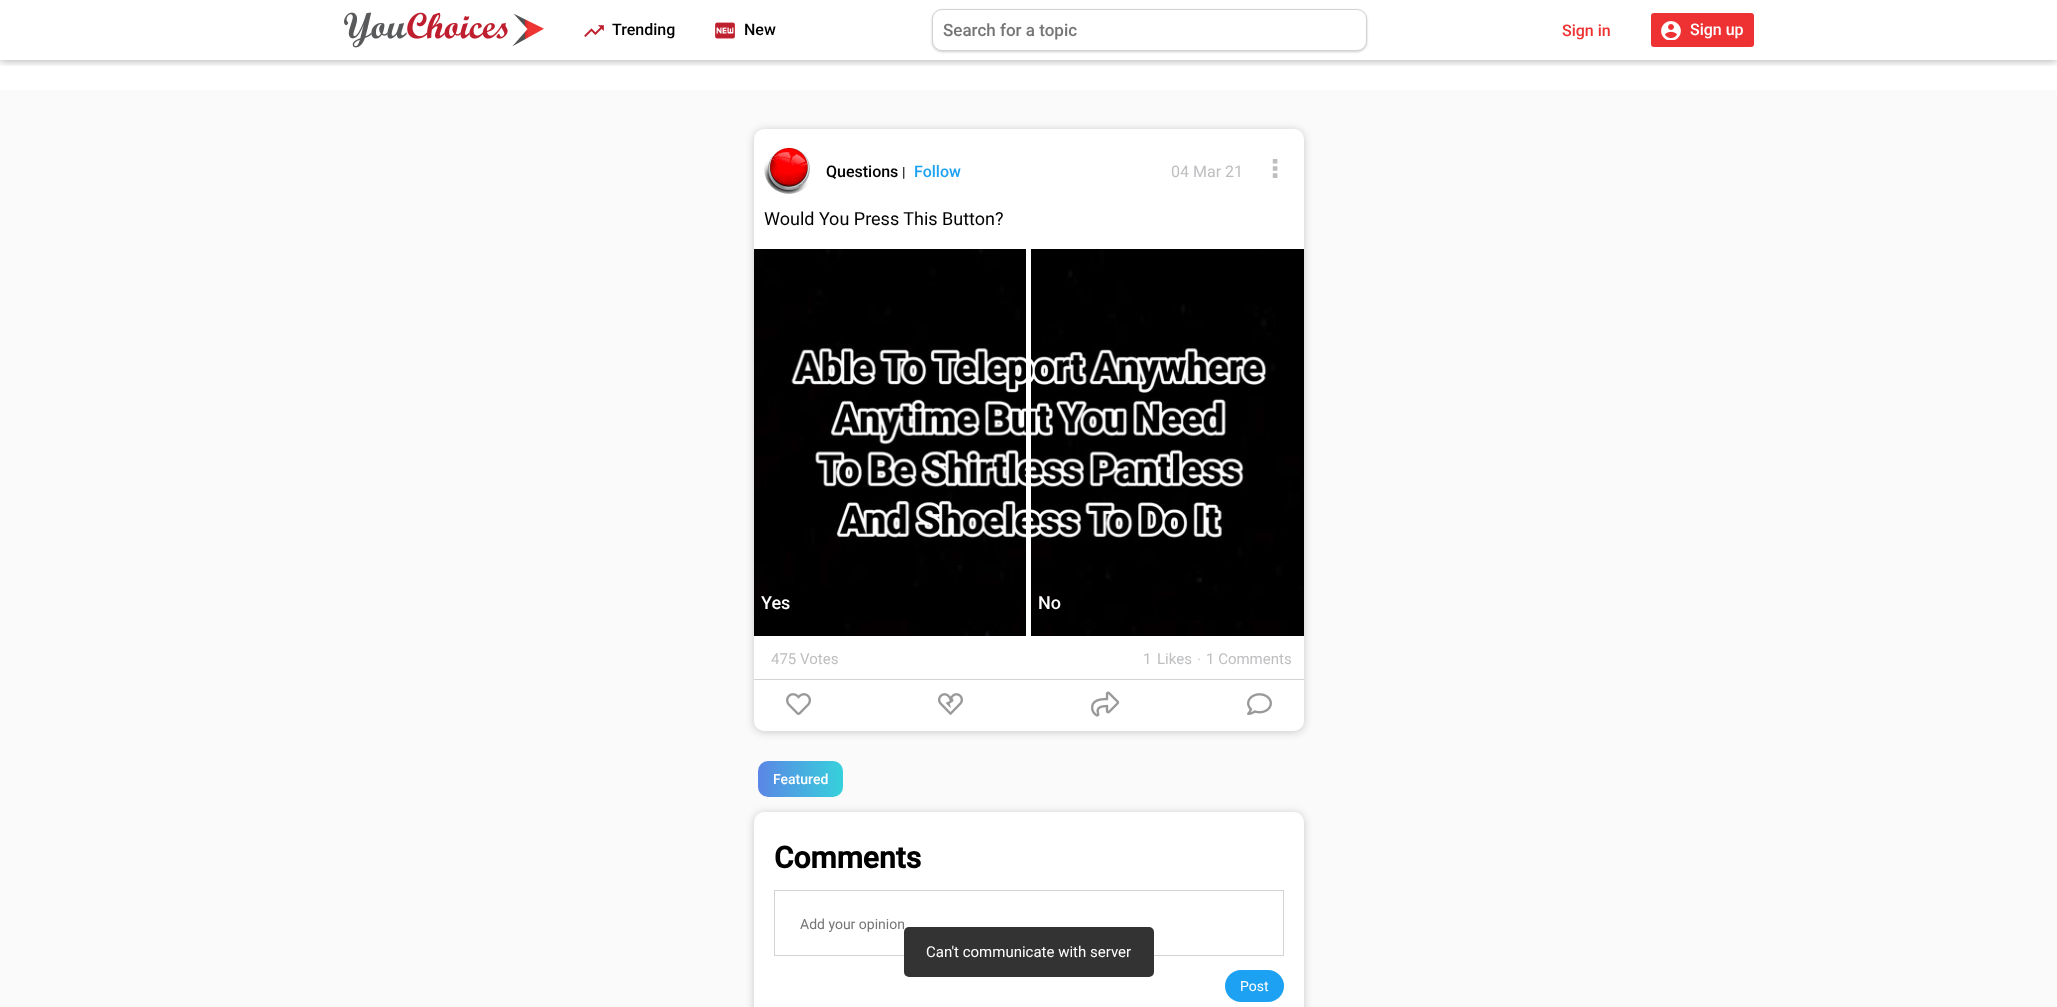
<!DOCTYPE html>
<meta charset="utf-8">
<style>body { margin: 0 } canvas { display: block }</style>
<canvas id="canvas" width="2057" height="1007"></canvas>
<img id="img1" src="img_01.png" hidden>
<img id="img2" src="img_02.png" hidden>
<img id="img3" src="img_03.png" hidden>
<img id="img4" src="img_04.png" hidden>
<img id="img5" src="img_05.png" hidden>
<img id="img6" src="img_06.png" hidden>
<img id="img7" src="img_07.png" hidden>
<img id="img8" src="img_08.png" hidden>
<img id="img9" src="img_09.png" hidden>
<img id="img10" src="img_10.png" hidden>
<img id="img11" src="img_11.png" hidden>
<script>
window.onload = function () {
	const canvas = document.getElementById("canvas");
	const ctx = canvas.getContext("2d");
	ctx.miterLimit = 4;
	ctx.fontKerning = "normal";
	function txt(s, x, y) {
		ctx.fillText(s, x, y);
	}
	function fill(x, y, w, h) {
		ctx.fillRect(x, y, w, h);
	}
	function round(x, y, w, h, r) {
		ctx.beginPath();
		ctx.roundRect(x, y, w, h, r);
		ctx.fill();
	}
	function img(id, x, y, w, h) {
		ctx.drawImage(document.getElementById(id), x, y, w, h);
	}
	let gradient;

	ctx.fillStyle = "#FFFFFF";
	fill(0, 0, 2057, 1007);
	ctx.save();
	ctx.beginPath();
	ctx.rect(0, 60, 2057, 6);
	ctx.clip();
	ctx.fillStyle = "rgba(0, 0, 0, 0.19)";
	ctx.filter = "blur(5px)";
	ctx.beginPath();
	ctx.rect(0, 0, 2057, 60);
	ctx.fill();
	ctx.filter = "none";
	ctx.fillStyle = "rgba(0, 0, 0, 0.2)";
	ctx.filter = "blur(5px)";
	ctx.beginPath();
	ctx.rect(0, 0, 2057, 60);
	ctx.fill();
	ctx.filter = "none";
	ctx.restore();
	img("img1", 344, 12, 200, 36);
	img("img2", 584, 25, 20, 12);
	img("img3", 715, 22, 20, 17);
	ctx.fillStyle = "rgba(0, 0, 0, 0.2)";
	ctx.filter = "blur(1px)";
	ctx.beginPath();
	ctx.roundRect(932, 10, 435, 42, 10);
	ctx.fill();
	ctx.filter = "none";
	ctx.fillStyle = "#FFFFFF";
	ctx.beginPath();
	ctx.roundRect(932.5, 9.5, 434, 41, 9.5);
	ctx.fill();
	ctx.strokeStyle = "#D3D3D3";
	ctx.stroke();
	ctx.fillStyle = "#EE3233";
	round(1651, 13, 103, 34, 3);
	img("img4", 1661, 21, 20, 19);
	ctx.fillStyle = "#FAFAFA";
	fill(0, 90, 2057, 917);
	ctx.fillStyle = "rgba(0, 0, 0, 0.2)";
	ctx.filter = "blur(4px)";
	ctx.beginPath();
	ctx.roundRect(754, 130, 550, 602, 10);
	ctx.fill();
	ctx.filter = "none";
	ctx.fillStyle = "#FFFFFF";
	round(754, 129, 550, 602, 10);
	img("img5", 764, 147, 46, 47);
	img("img6", 754, 249, 272, 387);
	ctx.fillStyle = "rgba(0, 0, 0, 0.6)";
	fill(768, 585, 252, 35);
	img("img7", 1031, 249, 273, 387);
	fill(1157, 595, 147, 25);
	ctx.fillStyle = "#D3D3D3";
	fill(754, 679, 550, 1);
	img("img8", 786, 693, 25, 22);
	img("img9", 938, 693, 25, 22);
	img("img10", 1091, 691, 29, 26);
	img("img11", 1247, 693, 25, 22);
	gradient = ctx.createLinearGradient(758, 779, 843, 779);
	gradient.addColorStop(0, "#5B86E5");
	gradient.addColorStop(1, "#36D1DC");
	ctx.fillStyle = gradient;
	round(758, 761, 85, 36, 10);
	ctx.fillStyle = "rgba(0, 0, 0, 0.2)";
	ctx.filter = "blur(4px)";
	ctx.beginPath();
	ctx.roundRect(754, 813, 550, 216, 10);
	ctx.fill();
	ctx.filter = "none";
	ctx.fillStyle = "#FFFFFF";
	round(754, 812, 550, 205, 10);
	ctx.strokeRect(774.5, 890.5, 509, 65);
	ctx.fillStyle = "#1DA1F2";
	round(1225, 970, 59, 32, 16);
	ctx.fillStyle = "#333333";
	round(904, 927, 250, 50, 5);
	ctx.font = "500 16px Roboto";
	ctx.fillStyle = "#000000";
	txt("Trending", 612, 35);
	txt("New", 744, 35);
	ctx.font = "500 17px Roboto";
	ctx.fillStyle = "#757575";
	txt("Search for a topic", 943, 36);
	ctx.font = "500 16px Roboto";
	ctx.fillStyle = "#EE3233";
	txt("Sign in", 1562, 36);
	ctx.fillStyle = "#FFFFFF";
	txt("Sign up", 1690, 35);
	ctx.fillStyle = "#000000";
	txt("Questions", 826, 177);
	ctx.font = "500 14px Roboto";
	txt("|", 902, 177);
	ctx.font = "500 16px Roboto";
	ctx.fillStyle = "#1DA1F2";
	txt("Follow", 914, 177);
	ctx.font = "16px Roboto";
	ctx.fillStyle = "#BDBEC0";
	txt("04 Mar 21", 1171, 177);
	ctx.font = "bold 26px DejaVu Sans";
	txt("⠇", 1269, 180);
	ctx.font = "18px Roboto";
	ctx.fillStyle = "#000000";
	txt("Would You Press This Button?", 764, 225);
	ctx.font = "500 18px Roboto";
	ctx.fillStyle = "#FFFFFF";
	txt("Yes", 761, 609);
	txt("No", 1038, 609);
	ctx.font = "15px Roboto";
	ctx.fillStyle = "#BDBEC0";
	txt("475 Votes", 771, 664);
	txt("1", 1143, 664);
	txt("Likes", 1157, 664);
	ctx.font = "16px Roboto";
	ctx.fillStyle = "#D3D3D3";
	txt("·", 1197, 665);
	ctx.font = "15px Roboto";
	ctx.fillStyle = "#BDBEC0";
	txt("1 Comments", 1206, 664);
	ctx.font = "500 14px Roboto";
	ctx.fillStyle = "#FFFFFF";
	txt("Featured", 773, 784);
	ctx.font = "bold 30px Roboto";
	ctx.fillStyle = "#000000";
	txt("Comments", 774, 868);
	ctx.font = "14px Roboto";
	ctx.fillStyle = "#757575";
	txt("Add your opinion", 800, 929);
	ctx.fillStyle = "#FFFFFF";
	txt("Post", 1240, 991);
	ctx.font = "15px Roboto";
	txt("Can't communicate with server", 926, 957);
};
</script>
